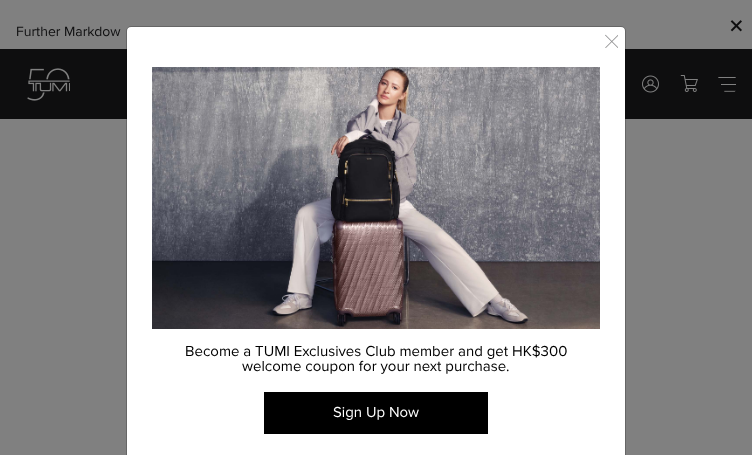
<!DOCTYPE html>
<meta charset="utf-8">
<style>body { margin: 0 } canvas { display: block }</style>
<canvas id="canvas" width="752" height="455"></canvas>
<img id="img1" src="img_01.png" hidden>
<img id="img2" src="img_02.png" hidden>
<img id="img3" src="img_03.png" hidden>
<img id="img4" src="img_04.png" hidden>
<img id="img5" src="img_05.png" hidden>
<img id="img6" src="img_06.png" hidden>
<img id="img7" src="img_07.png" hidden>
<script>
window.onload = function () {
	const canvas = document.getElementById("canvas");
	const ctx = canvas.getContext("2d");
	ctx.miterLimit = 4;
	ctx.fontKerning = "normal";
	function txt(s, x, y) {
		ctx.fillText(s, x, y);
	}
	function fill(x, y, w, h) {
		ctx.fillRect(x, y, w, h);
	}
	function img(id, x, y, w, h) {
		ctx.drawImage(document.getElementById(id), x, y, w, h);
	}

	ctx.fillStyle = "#808080";
	fill(0, 0, 752, 455);
	img("img1", 730, 20, 12, 12);
	ctx.fillStyle = "#0E0E0F";
	fill(0, 49, 752, 70);
	img("img2", 27, 68, 43, 33);
	img("img3", 642, 75, 17, 18);
	img("img4", 680, 75, 18, 17);
	img("img5", 718, 77, 18, 15);
	ctx.fillStyle = "#FFFFFF";
	ctx.beginPath();
	ctx.roundRect(127, 27, 498, 428, [4, 4, 0, 0]);
	ctx.fill();
	ctx.beginPath();
	ctx.roundRect(126.5, 26.5, 499, 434, 4.5);
	ctx.strokeStyle = "rgba(0, 0, 0, 0.2)";
	ctx.stroke();
	img("img6", 605, 34, 13, 14);
	img("img7", 152, 67, 448, 262);
	ctx.fillStyle = "#000000";
	fill(264, 392, 224, 42);
	ctx.font = "14px Proxima Nova";
	ctx.fillStyle = "#0E0E0F";
	txt("Further Markdow", 16, 36);
	ctx.font = "15px Proxima Nova";
	ctx.fillStyle = "#000000";
	txt("Become a TUMI Exclusives Club member and get HK$300", 185, 356);
	txt("welcome coupon for your next purchase.", 242, 371);
	ctx.fillStyle = "#FFFFFF";
	txt("Sign Up Now", 333, 417);
};
</script>
